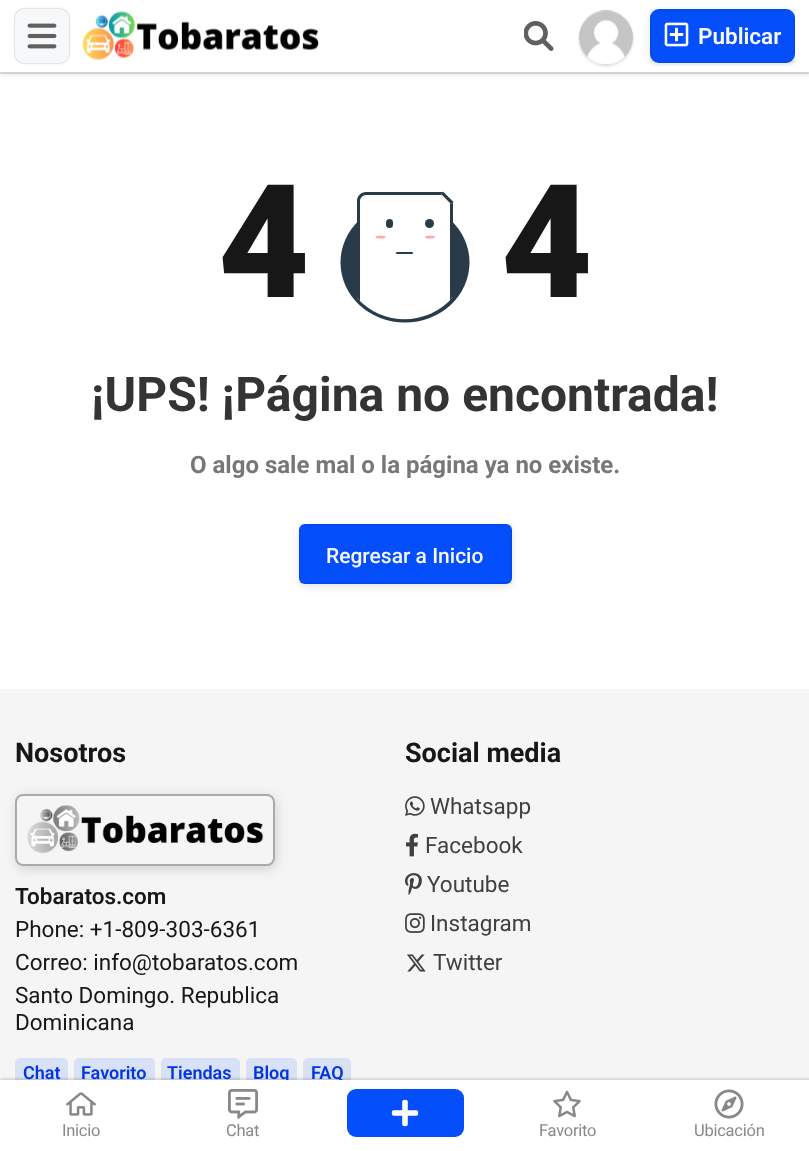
<!DOCTYPE html>
<meta charset="utf-8">
<style>body { margin: 0 } canvas { display: block }</style>
<canvas id="canvas" width="809" height="1151"></canvas>
<img id="img1" src="img_01.png" hidden>
<img id="img2" src="img_02.png" hidden>
<img id="img3" src="img_03.png" hidden>
<img id="img4" src="img_04.png" hidden>
<img id="img5" src="img_05.png" hidden>
<img id="img6" src="img_06.png" hidden>
<img id="img7" src="img_07.png" hidden>
<img id="img8" src="img_08.png" hidden>
<img id="img9" src="img_09.png" hidden>
<img id="img10" src="img_10.png" hidden>
<img id="img11" src="img_11.png" hidden>
<img id="img12" src="img_12.png" hidden>
<img id="img13" src="img_13.png" hidden>
<img id="img14" src="img_14.png" hidden>
<img id="img15" src="img_15.png" hidden>
<img id="img16" src="img_16.png" hidden>
<script>
window.onload = function () {
	const canvas = document.getElementById("canvas");
	const ctx = canvas.getContext("2d");
	ctx.miterLimit = 4;
	ctx.fontKerning = "normal";
	function txt(s, x, y) {
		ctx.fillText(s, x, y);
	}
	function fill(x, y, w, h) {
		ctx.fillRect(x, y, w, h);
	}
	function round(x, y, w, h, r) {
		ctx.beginPath();
		ctx.roundRect(x, y, w, h, r);
		ctx.fill();
	}
	function img(id, x, y, w, h) {
		ctx.drawImage(document.getElementById(id), x, y, w, h);
	}

	ctx.fillStyle = "#FFFFFF";
	fill(0, 0, 809, 1151);
	ctx.fillStyle = "#E6E6E6";
	fill(0, 72, 809, 2);
	ctx.save();
	ctx.beginPath();
	ctx.rect(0, 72, 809, 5);
	ctx.clip();
	ctx.fillStyle = "rgba(0, 0, 0, 0.1)";
	ctx.filter = "blur(2px)";
	ctx.beginPath();
	ctx.rect(0, 3, 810, 72);
	ctx.fill();
	ctx.filter = "none";
	ctx.restore();
	ctx.fillStyle = "rgba(0, 0, 0, 0.3)";
	ctx.filter = "blur(1px)";
	ctx.beginPath();
	ctx.roundRect(15, 9, 54, 54, 9);
	ctx.fill();
	ctx.filter = "none";
	ctx.fillStyle = "#F7F8F9";
	round(15, 9, 54, 54, 9);
	img("img1", 27, 23, 30, 26);
	img("img2", 82, 10, 237, 51);
	img("img3", 524, 21, 30, 30);
	ctx.fillStyle = "rgba(0, 0, 0, 0.15)";
	ctx.filter = "blur(1.5px)";
	ctx.beginPath();
	ctx.roundRect(579, 12, 54, 54, 27);
	ctx.fill();
	ctx.filter = "none";
	img("img4", 579, 10, 54, 54);
	ctx.save();
	ctx.beginPath();
	ctx.rect(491, 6, 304, 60);
	ctx.clip();
	ctx.fillStyle = "rgba(0, 0, 0, 0.1)";
	ctx.filter = "blur(4px)";
	ctx.beginPath();
	ctx.roundRect(650, 12, 145, 54, 9);
	ctx.fill();
	ctx.filter = "none";
	ctx.restore();
	ctx.fillStyle = "#044EFB";
	round(650, 9, 145, 54, 9);
	ctx.strokeStyle = "rgba(0, 0, 0, 0.05)";
	ctx.lineWidth = 2;
	ctx.strokeRect(651, 10, 143, 52);
	img("img5", 664, 22, 25, 25);
	ctx.fillStyle = "#293B49";
	ctx.beginPath();
	ctx.ellipse(405, 262.5, 64.5, 60, 0, 0, Math.PI * 2);
	ctx.fill();
	ctx.fillStyle = "#FFFFFF";
	ctx.beginPath();
	ctx.moveTo(366, 192);
	ctx.lineTo(444, 192);
	ctx.bezierCurveTo(449, 192, 453, 196, 453, 201);
	ctx.lineTo(453, 297);
	ctx.bezierCurveTo(428, 326, 383, 327, 357, 298);
	ctx.lineTo(357, 201);
	ctx.bezierCurveTo(357, 196, 361, 192, 366, 192);
	ctx.closePath();
	ctx.fill();
	ctx.fillStyle = "#293B49";
	ctx.beginPath();
	ctx.moveTo(366, 192);
	ctx.bezierCurveTo(361, 192, 357, 196, 357, 201);
	ctx.lineTo(357, 298);
	ctx.lineTo(360, 301);
	ctx.lineTo(360, 201);
	ctx.bezierCurveTo(360, 198, 363, 195, 366, 195);
	ctx.lineTo(444, 195);
	ctx.bezierCurveTo(447, 195, 450, 198, 450, 201);
	ctx.lineTo(450, 300);
	ctx.lineTo(453, 297);
	ctx.lineTo(453, 201);
	ctx.bezierCurveTo(453, 196, 449, 192, 444, 192);
	ctx.closePath();
	ctx.fill();
	ctx.fillStyle = "#FFFFFF";
	ctx.beginPath();
	ctx.moveTo(448.5, 186.5);
	ctx.lineTo(458.5, 197);
	ctx.lineTo(451, 204);
	ctx.lineTo(441, 194);
	ctx.closePath();
	ctx.fill();
	ctx.fillStyle = "#293B49";
	ctx.beginPath();
	ctx.moveTo(443, 191.5);
	ctx.lineTo(453.5, 202);
	ctx.lineTo(451, 204);
	ctx.lineTo(441, 194);
	ctx.closePath();
	ctx.fill();
	round(386, 219, 7, 9, 3.5);
	ctx.beginPath();
	ctx.arc(429.5, 223.5, 4.5, 0, Math.PI * 2);
	ctx.fill();
	ctx.fillStyle = "#FDABAF";
	ctx.beginPath();
	ctx.ellipse(380.5, 237, 5, 1.5, 0, 0, Math.PI * 2);
	ctx.fill();
	ctx.beginPath();
	ctx.ellipse(430, 237, 5, 1.5, 0, 0, Math.PI * 2);
	ctx.fill();
	ctx.fillStyle = "#293B49";
	round(396, 252, 17, 2, 1);
	ctx.fillStyle = "rgba(0, 0, 0, 0.1)";
	ctx.filter = "blur(4px)";
	ctx.beginPath();
	ctx.roundRect(299, 527, 213, 60, 6);
	ctx.fill();
	ctx.filter = "none";
	ctx.fillStyle = "#044EFB";
	round(299, 524, 213, 60, 6);
	ctx.strokeRect(300, 525, 211, 58);
	ctx.fillStyle = "#F5F5F5";
	fill(0, 689, 809, 391);
	ctx.save();
	ctx.beginPath();
	ctx.moveTo(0, 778);
	ctx.lineTo(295, 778);
	ctx.lineTo(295, 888);
	ctx.lineTo(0, 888);
	ctx.closePath();
	ctx.moveTo(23, 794);
	ctx.lineTo(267, 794);
	ctx.bezierCurveTo(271.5, 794, 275, 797.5, 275, 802);
	ctx.lineTo(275, 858);
	ctx.bezierCurveTo(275, 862.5, 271.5, 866, 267, 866);
	ctx.lineTo(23, 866);
	ctx.bezierCurveTo(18.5, 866, 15, 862.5, 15, 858);
	ctx.lineTo(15, 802);
	ctx.bezierCurveTo(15, 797.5, 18.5, 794, 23, 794);
	ctx.closePath();
	ctx.clip("evenodd");
	ctx.fillStyle = "rgba(0, 0, 0, 0.15)";
	ctx.filter = "blur(6px)";
	ctx.beginPath();
	ctx.roundRect(17, 797, 259, 72, 8);
	ctx.fill();
	ctx.filter = "none";
	ctx.restore();
	ctx.beginPath();
	ctx.roundRect(16, 795, 258, 70, 7);
	ctx.strokeStyle = "#AAAAAA";
	ctx.stroke();
	img("img6", 27, 805, 237, 49);
	ctx.fillStyle = "#D8E1F6";
	round(15, 1058, 53, 33, 5);
	round(74, 1058, 81, 33, 5);
	round(161, 1058, 79, 33, 5);
	round(246, 1058, 51, 33, 5);
	round(303, 1058, 48, 33, 5);
	img("img7", 405, 796, 20, 20);
	img("img8", 406, 833, 13, 24);
	img("img9", 405, 873, 17, 22);
	img("img10", 405, 913, 20, 20);
	img("img11", 407, 954, 19, 18);
	ctx.fillStyle = "rgba(0, 0, 0, 0.2)";
	ctx.filter = "blur(1.5px)";
	ctx.beginPath();
	ctx.rect(0, 1079, 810, 72);
	ctx.fill();
	ctx.filter = "none";
	ctx.font = "600 22.5px Roboto";
	ctx.fillStyle = "#F9F9F9";
	txt("Publicar", 698, 44);
	ctx.font = "900 158px Roboto";
	ctx.fillStyle = "#171717";
	txt("4", 218, 297);
	txt("4", 501, 297);
	ctx.font = "bold 48px Roboto";
	ctx.fillStyle = "#363433";
	txt("¡UPS! ¡Página no encontrada!", 91, 411);
	ctx.font = "bold 24px Roboto";
	ctx.fillStyle = "#777777";
	txt("O algo sale mal o la página ya no existe.", 190, 473);
	ctx.font = "500 21px Roboto";
	ctx.fillStyle = "#F9F9F9";
	txt("Regresar a Inicio", 326, 563);
	ctx.font = "bold 27px Roboto";
	ctx.fillStyle = "#171717";
	txt("Nosotros", 15, 762);
	ctx.font = "600 22.5px Roboto";
	txt("Tobaratos.com", 15, 904);
	ctx.font = "22.5px Roboto";
	txt("Phone: +1-809-303-6361", 15, 937);
	txt("Correo: info@tobaratos.com", 15, 970);
	txt("Santo Domingo. Republica", 15, 1003);
	txt("Dominicana", 15, 1030);
	ctx.font = "600 18px Roboto";
	ctx.fillStyle = "#0035E2";
	txt("Chat", 23, 1079);
	txt("Favorito", 81, 1079);
	txt("Tiendas", 167, 1079);
	txt("Blog", 253, 1079);
	txt("FAQ", 311, 1079);
	ctx.font = "bold 27px Roboto";
	ctx.fillStyle = "#171717";
	txt("Social media", 405, 762);
	ctx.font = "22.5px Roboto";
	ctx.fillStyle = "#404040";
	txt("Whatsapp", 430, 814);
	txt("Facebook", 425, 853);
	txt("Youtube", 427, 892);
	txt("Instagram", 430, 931);
	txt("Twitter", 433, 970);
	ctx.fillStyle = "#FFFFFF";
	fill(0, 1080, 809, 71);
	img("img12", 66, 1092, 30, 24);
	ctx.letterSpacing = "-0.25px";
	ctx.font = "16.5px Roboto";
	ctx.fillStyle = "#888888";
	txt("Inicio", 62, 1136);
	img("img13", 228, 1089, 30, 30);
	txt("Chat", 226, 1136);
	ctx.fillStyle = "#044EFB";
	round(347, 1089, 117, 48, 9);
	img("img14", 391, 1099, 28, 28);
	img("img15", 553, 1090, 28, 28);
	ctx.fillStyle = "#888888";
	txt("Favorito", 539, 1136);
	img("img16", 714, 1089, 30, 30);
	txt("Ubicación", 694, 1136);
};
</script>
